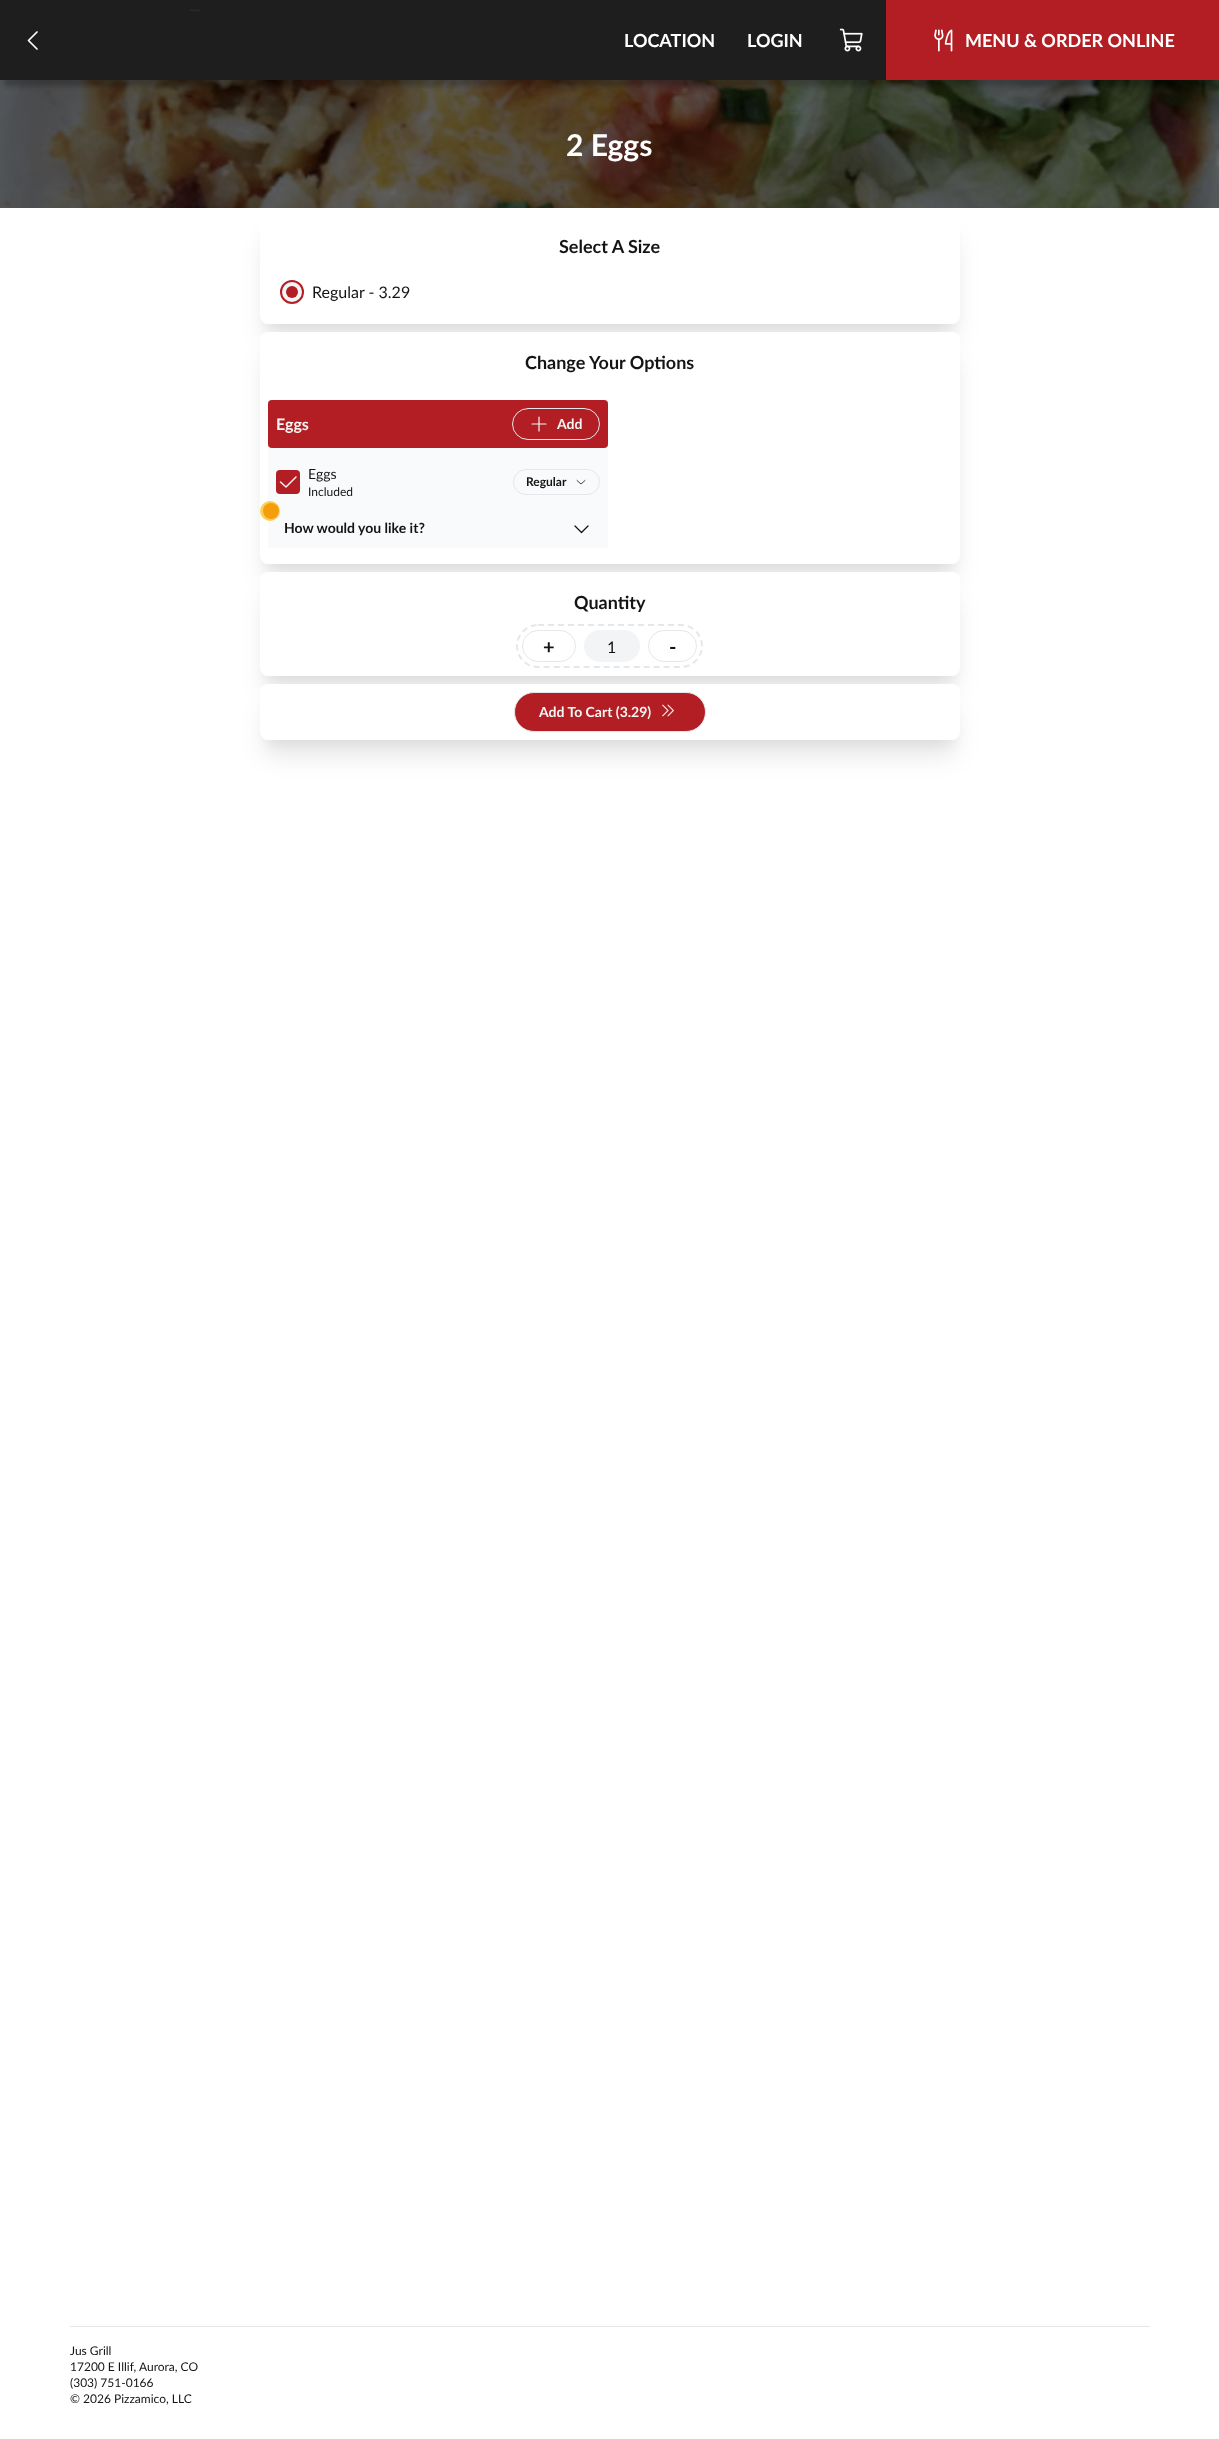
<!DOCTYPE html>
<meta charset="utf-8">
<style>body { margin: 0 } canvas { display: block }</style>
<canvas id="canvas" width="1219" height="2439"></canvas>
<img id="img1" src="img_04.png" hidden>
<img id="img2" src="img_01.png" hidden>
<img id="img3" src="img_02.png" hidden>
<img id="img4" src="img_03.png" hidden>
<img id="img5" src="img_05.png" hidden>
<script>
window.onload = function () {
	const canvas = document.getElementById("canvas");
	const ctx = canvas.getContext("2d");
	ctx.miterLimit = 4;
	ctx.fontKerning = "normal";
	function txt(s, x, y) {
		ctx.fillText(s, x, y);
	}
	function fill(x, y, w, h) {
		ctx.fillRect(x, y, w, h);
	}
	function round(x, y, w, h, r) {
		ctx.beginPath();
		ctx.roundRect(x, y, w, h, r);
		ctx.fill();
	}
	function img(id, x, y, w, h) {
		ctx.drawImage(document.getElementById(id), x, y, w, h);
	}

	ctx.fillStyle = "#FFFFFF";
	fill(0, 0, 1219, 2439);
	ctx.fillStyle = "rgba(0, 0, 0, 0.1)";
	ctx.filter = "blur(12.5px)";
	ctx.beginPath();
	ctx.roundRect(265, 241, 690, 98, 3);
	ctx.fill();
	ctx.filter = "none";
	img("img1", 0, 80, 1219, 128);
	ctx.fillStyle = "rgba(0, 0, 0, 0.25)";
	ctx.filter = "blur(2.5px)";
	ctx.beginPath();
	ctx.rect(4, 14, 1211, 72);
	ctx.fill();
	ctx.filter = "none";
	ctx.fillStyle = "#1E1E1E";
	fill(0, 0, 886, 80);
	img("img2", 190, 9, 10, 2);
	ctx.beginPath();
	ctx.moveTo(37, 49);
	ctx.lineTo(28.5, 40.5);
	ctx.lineTo(37, 32);
	ctx.strokeStyle = "#FFFFFF";
	ctx.lineWidth = 1.7;
	ctx.lineCap = "round";
	ctx.lineJoin = "round";
	ctx.stroke();
	img("img3", 839, 28, 24, 24);
	ctx.fillStyle = "#B21E23";
	fill(886, 0, 333, 80);
	img("img4", 934, 29, 19, 23);
	ctx.fillStyle = "rgba(0, 0, 0, 0.04)";
	ctx.filter = "blur(5px)";
	ctx.beginPath();
	ctx.roundRect(265, 231, 690, 98, 3);
	ctx.fill();
	ctx.filter = "none";
	ctx.fillStyle = "#FFFFFF";
	round(260, 216, 700, 108, 8);
	ctx.fillStyle = "#F3F4F6";
	ctx.beginPath();
	ctx.arc(292, 292, 11, 0, Math.PI * 2);
	ctx.fill();
	ctx.strokeStyle = "#B21E23";
	ctx.lineWidth = 2;
	ctx.stroke();
	ctx.fillStyle = "#B21E23";
	ctx.beginPath();
	ctx.arc(292, 292, 6, 0, Math.PI * 2);
	ctx.fill();
	ctx.fillStyle = "rgba(0, 0, 0, 0.04)";
	ctx.filter = "blur(5px)";
	ctx.beginPath();
	ctx.roundRect(265, 347, 690, 222, 3);
	ctx.fill();
	ctx.filter = "none";
	ctx.fillStyle = "rgba(0, 0, 0, 0.1)";
	ctx.filter = "blur(12.5px)";
	ctx.beginPath();
	ctx.roundRect(265, 357, 690, 222, 3);
	ctx.fill();
	ctx.filter = "none";
	ctx.fillStyle = "#FFFFFF";
	round(260, 332, 700, 232, 8);
	ctx.fillStyle = "#F9FAFB";
	fill(268, 400, 340, 148);
	ctx.fillStyle = "#B21E23";
	round(268, 400, 340, 48, 4);
	ctx.beginPath();
	ctx.roundRect(512.5, 408.5, 87, 31, 15.5);
	ctx.strokeStyle = "#E5E7EB";
	ctx.lineWidth = 1;
	ctx.lineJoin = "miter";
	ctx.stroke();
	ctx.beginPath();
	ctx.moveTo(532, 424);
	ctx.lineTo(546, 424);
	ctx.moveTo(539, 417);
	ctx.lineTo(539, 431);
	ctx.strokeStyle = "#F5F5F5";
	ctx.lineWidth = 1.2;
	ctx.lineJoin = "round";
	ctx.stroke();
	round(276, 470, 24, 24, 4);
	ctx.beginPath();
	ctx.moveTo(296, 477);
	ctx.lineTo(286, 487);
	ctx.lineTo(280.5, 482);
	ctx.lineWidth = 1.5;
	ctx.stroke();
	ctx.beginPath();
	ctx.roundRect(513.5, 469.5, 86, 25, 12.5);
	ctx.strokeStyle = "#E5E7EB";
	ctx.lineWidth = 1;
	ctx.lineJoin = "miter";
	ctx.stroke();
	ctx.beginPath();
	ctx.moveTo(585, 480.5);
	ctx.lineTo(581, 484);
	ctx.lineTo(577, 480.5);
	ctx.strokeStyle = "#141414";
	ctx.lineWidth = 0.8;
	ctx.lineJoin = "round";
	ctx.stroke();
	ctx.fillStyle = "rgba(251, 191, 36, 0.75)";
	ctx.beginPath();
	ctx.arc(270, 511, 10, 0, Math.PI * 2);
	ctx.fill();
	ctx.fillStyle = "#F59E0B";
	ctx.beginPath();
	ctx.arc(271, 511, 8, 0, Math.PI * 2);
	ctx.fill();
	ctx.beginPath();
	ctx.moveTo(588, 526);
	ctx.lineTo(581.5, 532.5);
	ctx.lineTo(575, 526);
	ctx.lineWidth = 1.3;
	ctx.stroke();
	ctx.fillStyle = "rgba(0, 0, 0, 0.04)";
	ctx.filter = "blur(5px)";
	ctx.beginPath();
	ctx.roundRect(265, 587, 690, 94, 3);
	ctx.fill();
	ctx.filter = "none";
	ctx.fillStyle = "rgba(0, 0, 0, 0.1)";
	ctx.filter = "blur(12.5px)";
	ctx.beginPath();
	ctx.roundRect(265, 597, 690, 94, 3);
	ctx.fill();
	ctx.filter = "none";
	ctx.fillStyle = "#FFFFFF";
	round(260, 572, 700, 104, 8);
	ctx.beginPath();
	ctx.moveTo(538, 625);
	ctx.lineTo(681, 625);
	ctx.bezierCurveTo(692.5, 625, 702, 634.5, 702, 646);
	ctx.bezierCurveTo(702, 657.5, 692.5, 667, 681, 667);
	ctx.lineTo(538, 667);
	ctx.bezierCurveTo(526.5, 667, 517, 657.5, 517, 646);
	ctx.bezierCurveTo(517, 634.5, 526.5, 625, 538, 625);
	ctx.closePath();
	ctx.strokeStyle = "#E5E7EB";
	ctx.lineWidth = 2;
	ctx.lineCap = "butt";
	ctx.lineJoin = "miter";
	ctx.setLineDash([6, 4]);
	ctx.stroke();
	ctx.beginPath();
	ctx.roundRect(522.5, 630.5, 53, 31, 15.5);
	ctx.lineWidth = 1;
	ctx.setLineDash([]);
	ctx.stroke();
	ctx.fillStyle = "#F3F4F6";
	round(584, 630, 56, 32, 16);
	ctx.beginPath();
	ctx.roundRect(648.5, 630.5, 48, 31, 15.5);
	ctx.stroke();
	ctx.fillStyle = "rgba(0, 0, 0, 0.04)";
	ctx.filter = "blur(5px)";
	ctx.beginPath();
	ctx.roundRect(265, 699, 690, 46, 3);
	ctx.fill();
	ctx.filter = "none";
	ctx.fillStyle = "rgba(0, 0, 0, 0.1)";
	ctx.filter = "blur(12.5px)";
	ctx.beginPath();
	ctx.roundRect(265, 709, 690, 46, 3);
	ctx.fill();
	ctx.filter = "none";
	ctx.fillStyle = "#FFFFFF";
	round(260, 684, 700, 56, 8);
	ctx.fillStyle = "#B21E23";
	ctx.beginPath();
	ctx.roundRect(514.5, 692.5, 191, 39, 19.5);
	ctx.fill();
	ctx.stroke();
	img("img5", 662, 704, 12, 13);
	ctx.fillStyle = "#E5E7EB";
	fill(70, 2326, 1080, 1);
	ctx.font = "bold 18px Lato";
	ctx.fillStyle = "#FFFFFF";
	txt("LOCATION", 624, 47);
	txt("LOGIN", 747, 47);
	txt("MENU & ORDER ONLINE", 965, 47);
	ctx.font = "bold 30px Lato";
	txt("2 Eggs", 566, 156);
	ctx.font = "bold 18px Lato";
	ctx.fillStyle = "#141414";
	txt("Select A Size", 559, 253);
	ctx.font = "16px Lato";
	txt("Regular - 3.29", 312, 298);
	ctx.font = "bold 18px Lato";
	txt("Change Your Options", 525, 369);
	ctx.font = "bold 16px Lato";
	ctx.fillStyle = "#F5F5F5";
	txt("Eggs", 276, 430);
	ctx.font = "bold 14px Lato";
	txt("Add", 557, 429);
	ctx.font = "14px Lato";
	ctx.fillStyle = "#141414";
	txt("Eggs", 308, 479);
	ctx.font = "12px Lato";
	txt("Included", 308, 496);
	ctx.font = "bold 12px Lato";
	txt("Regular", 526, 486);
	ctx.font = "bold 14px Lato";
	txt("How would you like it?", 284, 533);
	ctx.font = "bold 18px Lato";
	txt("Quantity", 574, 609);
	ctx.font = "bold 20px Lato";
	txt("+", 543, 654);
	ctx.font = "16px Lato";
	txt("1", 607, 653);
	ctx.font = "bold 20px Lato";
	txt("-", 669, 654);
	ctx.font = "bold 14px Lato";
	ctx.fillStyle = "#F5F5F5";
	txt("Add To Cart (3.29)", 539, 717);
	ctx.font = "12px Lato";
	ctx.fillStyle = "#141414";
	txt("Jus Grill", 70, 2355);
	txt("17200 E Illif, Aurora, CO", 70, 2371);
	txt("(303) 751-0166", 70, 2387);
	txt("© 2026 Pizzamico, LLC", 70, 2403);
};
</script>
